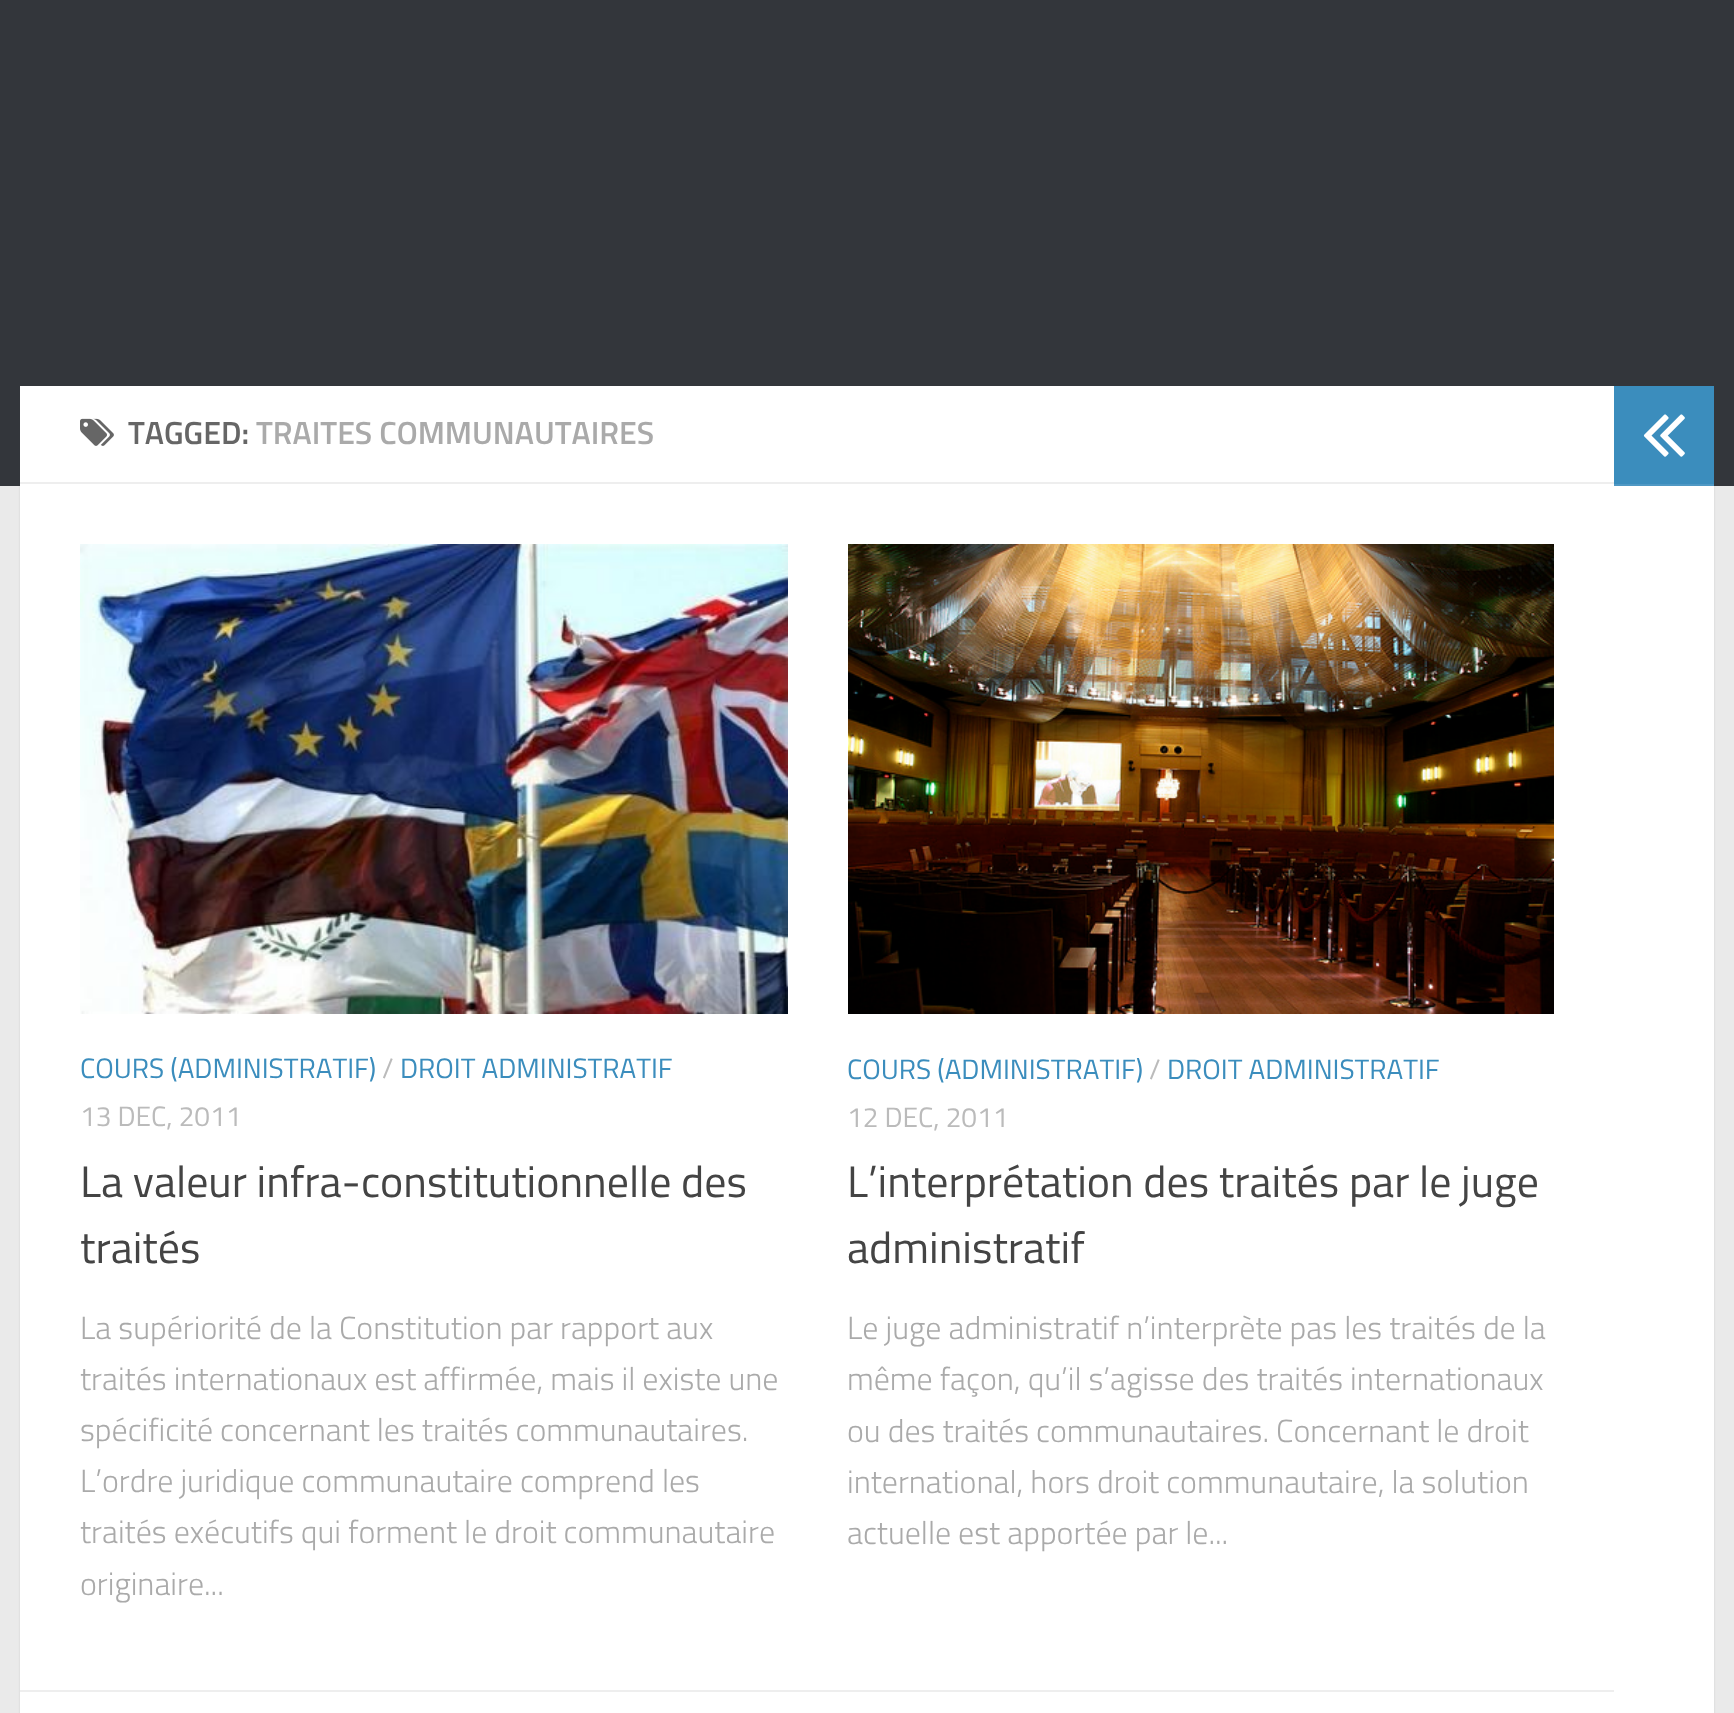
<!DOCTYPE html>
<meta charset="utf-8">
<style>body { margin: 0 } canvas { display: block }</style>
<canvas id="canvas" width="1734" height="1713"></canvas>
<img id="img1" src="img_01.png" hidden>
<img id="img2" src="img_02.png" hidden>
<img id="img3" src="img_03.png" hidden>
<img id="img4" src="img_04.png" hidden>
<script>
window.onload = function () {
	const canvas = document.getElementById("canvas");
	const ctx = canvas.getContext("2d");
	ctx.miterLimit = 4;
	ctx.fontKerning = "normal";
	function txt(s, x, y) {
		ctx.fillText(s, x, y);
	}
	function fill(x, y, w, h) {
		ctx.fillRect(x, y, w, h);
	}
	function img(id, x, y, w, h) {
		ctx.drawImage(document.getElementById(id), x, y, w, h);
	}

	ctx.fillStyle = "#EAEAEA";
	fill(0, 0, 1734, 1713);
	ctx.fillStyle = "rgba(0, 0, 0, 0.1)";
	ctx.filter = "blur(1px)";
	ctx.beginPath();
	ctx.rect(20, 388, 1694, 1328);
	ctx.fill();
	ctx.filter = "none";
	ctx.fillStyle = "#33363B";
	fill(0, 0, 1734, 486);
	ctx.fillStyle = "#FFFFFF";
	fill(20, 386, 1694, 1327);
	ctx.fillStyle = "#EEEEEE";
	fill(20, 482, 1594, 2);
	img("img1", 80, 418, 34, 28);
	fill(20, 1690, 1594, 2);
	img("img2", 80, 544, 708, 470);
	img("img3", 848, 544, 706, 470);
	ctx.fillStyle = "#3B8DBD";
	fill(1614, 386, 100, 98);
	ctx.fillStyle = "#4F98C4";
	fill(1614, 484, 100, 2);
	img("img4", 1643, 414, 42, 43);
	ctx.font = "600 32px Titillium";
	ctx.fillStyle = "#666666";
	txt("TAGGED:", 128, 444);
	ctx.fillStyle = "#AAAAAA";
	txt("TRAITES COMMUNAUTAIRES", 256, 444);
	ctx.font = "28px Titillium";
	ctx.fillStyle = "#3B8DBD";
	txt("COURS (ADMINISTRATIF)", 80, 1078);
	ctx.fillStyle = "#BBBBBB";
	txt("/", 382, 1078);
	ctx.fillStyle = "#3B8DBD";
	txt("DROIT ADMINISTRATIF", 400, 1078);
	ctx.fillStyle = "#BBBBBB";
	txt("13 DEC, 2011", 80, 1126);
	ctx.font = "44px Titillium";
	ctx.fillStyle = "#444444";
	txt("La valeur infra-constitutionnelle des", 80, 1197);
	txt("traités", 80, 1263);
	ctx.font = "300 32px Titillium";
	ctx.fillStyle = "#AAAAAA";
	txt("La supériorité de la Constitution par rapport aux", 80, 1339);
	txt("traités internationaux est affirmée, mais il existe une", 80, 1390);
	txt("spécificité concernant les traités communautaires.", 80, 1441);
	txt("L’ordre juridique communautaire comprend les", 80, 1492);
	txt("traités exécutifs qui forment le droit communautaire", 80, 1543);
	txt("originaire...", 80, 1595);
	ctx.font = "28px Titillium";
	ctx.fillStyle = "#3B8DBD";
	txt("COURS (ADMINISTRATIF)", 847, 1079);
	ctx.fillStyle = "#BBBBBB";
	txt("/", 1149, 1079);
	ctx.fillStyle = "#3B8DBD";
	txt("DROIT ADMINISTRATIF", 1167, 1079);
	ctx.fillStyle = "#BBBBBB";
	txt("12 DEC, 2011", 847, 1127);
	ctx.font = "44px Titillium";
	ctx.fillStyle = "#444444";
	txt("L’interprétation des traités par le juge", 847, 1197);
	txt("administratif", 847, 1263);
	ctx.font = "300 32px Titillium";
	ctx.fillStyle = "#AAAAAA";
	txt("Le juge administratif n’interprète pas les traités de la", 847, 1339);
	txt("même façon, qu’il s’agisse des traités internationaux", 847, 1390);
	txt("ou des traités communautaires. Concernant le droit", 847, 1442);
	txt("international, hors droit communautaire, la solution", 847, 1493);
	txt("actuelle est apportée par le...", 847, 1544);
};
</script>
